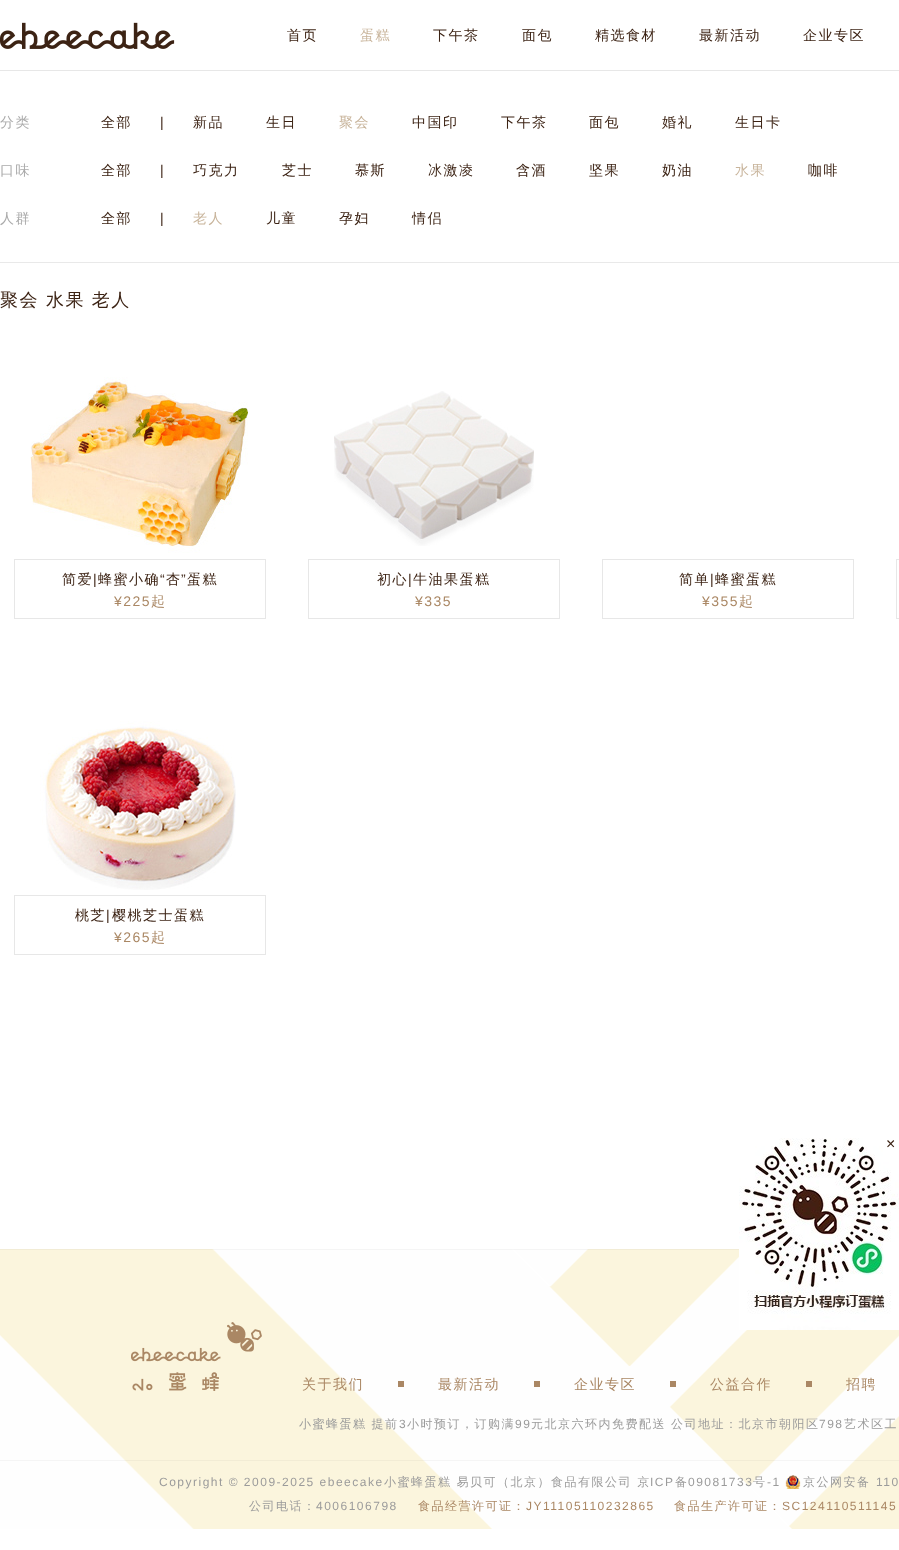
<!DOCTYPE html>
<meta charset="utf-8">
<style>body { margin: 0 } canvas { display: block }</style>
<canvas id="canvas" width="899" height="1550"></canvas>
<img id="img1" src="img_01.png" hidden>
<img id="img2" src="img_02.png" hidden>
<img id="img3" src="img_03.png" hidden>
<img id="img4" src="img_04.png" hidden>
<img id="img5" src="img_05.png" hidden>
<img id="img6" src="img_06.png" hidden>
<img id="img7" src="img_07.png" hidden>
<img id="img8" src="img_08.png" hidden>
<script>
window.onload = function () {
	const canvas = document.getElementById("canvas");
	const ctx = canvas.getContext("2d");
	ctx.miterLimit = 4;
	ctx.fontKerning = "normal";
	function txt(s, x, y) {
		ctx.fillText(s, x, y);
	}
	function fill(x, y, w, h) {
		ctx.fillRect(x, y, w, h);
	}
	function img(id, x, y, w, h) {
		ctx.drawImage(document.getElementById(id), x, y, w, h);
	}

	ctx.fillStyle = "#FFFFFF";
	fill(0, 0, 899, 1550);
	ctx.fillStyle = "#E7E7E7";
	fill(0, 70, 899, 1);
	img("img1", 0, 22, 175, 27);
	ctx.fillStyle = "#E9E9E9";
	fill(0, 262, 899, 1);
	img("img2", 30, 377, 218, 176);
	ctx.strokeStyle = "#E7E7E7";
	ctx.strokeRect(14.5, 559.5, 251, 59);
	img("img3", 334, 391, 200, 155);
	ctx.strokeRect(308.5, 559.5, 251, 59);
	ctx.strokeRect(602.5, 559.5, 251, 59);
	ctx.strokeRect(896.5, 559.5, 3, 59);
	img("img4", 40, 721, 196, 169);
	ctx.strokeRect(14.5, 895.5, 251, 59);
	img("img5", 0, 1249, 899, 280);
	img("img6", 131, 1322, 131, 69);
	ctx.fillStyle = "#AA8764";
	fill(398, 1381, 6, 6);
	fill(534, 1381, 6, 6);
	fill(670, 1381, 6, 6);
	fill(806, 1381, 6, 6);
	img("img7", 785, 1475, 16, 14);
	img("img8", 739, 1138, 160, 192);
	ctx.letterSpacing = "1.5px";
	ctx.font = "500 14px WenQuanYi Zen Hei";
	ctx.fillStyle = "#3C2314";
	txt("首页", 287, 40);
	ctx.fillStyle = "#C8B49B";
	txt("蛋糕", 360, 40);
	ctx.fillStyle = "#3C2314";
	txt("下午茶", 433, 40);
	txt("面包", 522, 40);
	txt("精选食材", 595, 40);
	txt("最新活动", 699, 40);
	txt("企业专区", 803, 40);
	ctx.fillStyle = "#AAAAAA";
	txt("分类", 0, 127);
	ctx.fillStyle = "#3C2314";
	txt("全部", 101, 127);
	ctx.font = "14px Liberation Sans";
	txt("|", 160, 127);
	ctx.font = "500 14px WenQuanYi Zen Hei";
	txt("新品", 193, 127);
	txt("生日", 266, 127);
	ctx.fillStyle = "#C8B49B";
	txt("聚会", 339, 127);
	ctx.fillStyle = "#3C2314";
	txt("中国印", 412, 127);
	txt("下午茶", 501, 127);
	txt("面包", 589, 127);
	txt("婚礼", 662, 127);
	txt("生日卡", 735, 127);
	ctx.fillStyle = "#AAAAAA";
	txt("口味", 0, 175);
	ctx.fillStyle = "#3C2314";
	txt("全部", 101, 175);
	ctx.font = "14px Liberation Sans";
	txt("|", 160, 175);
	ctx.font = "500 14px WenQuanYi Zen Hei";
	txt("巧克力", 193, 175);
	txt("芝士", 282, 175);
	txt("慕斯", 355, 175);
	txt("冰激凌", 428, 175);
	txt("含酒", 516, 175);
	txt("坚果", 589, 175);
	txt("奶油", 662, 175);
	ctx.fillStyle = "#C8B49B";
	txt("水果", 735, 175);
	ctx.fillStyle = "#3C2314";
	txt("咖啡", 808, 175);
	ctx.fillStyle = "#AAAAAA";
	txt("人群", 0, 223);
	ctx.fillStyle = "#3C2314";
	txt("全部", 101, 223);
	ctx.font = "14px Liberation Sans";
	txt("|", 160, 223);
	ctx.font = "500 14px WenQuanYi Zen Hei";
	ctx.fillStyle = "#C8B49B";
	txt("老人", 193, 223);
	ctx.fillStyle = "#3C2314";
	txt("儿童", 266, 223);
	txt("孕妇", 339, 223);
	txt("情侣", 412, 223);
	ctx.font = "500 18px WenQuanYi Zen Hei";
	txt("聚会 水果 老人", 0, 306);
	ctx.font = "500 14px WenQuanYi Zen Hei";
	txt("简爱", 62, 584);
	ctx.font = "14px Liberation Sans";
	txt("|", 93, 584);
	ctx.font = "500 14px WenQuanYi Zen Hei";
	txt("蜂蜜小确", 98, 584);
	ctx.font = "14px Liberation Sans";
	txt("“", 160, 584);
	ctx.font = "500 14px WenQuanYi Zen Hei";
	txt("杏", 166, 584);
	ctx.font = "14px Liberation Sans";
	txt("”", 181, 584);
	ctx.font = "500 14px WenQuanYi Zen Hei";
	txt("蛋糕", 187, 584);
	ctx.font = "14px Liberation Sans";
	ctx.fillStyle = "#AA8764";
	txt("¥225", 114, 606);
	ctx.font = "500 14px WenQuanYi Zen Hei";
	txt("起", 151, 606);
	ctx.fillStyle = "#3C2314";
	txt("初心", 377, 584);
	ctx.font = "14px Liberation Sans";
	txt("|", 408, 584);
	ctx.font = "500 14px WenQuanYi Zen Hei";
	txt("牛油果蛋糕", 413, 584);
	ctx.font = "14px Liberation Sans";
	ctx.fillStyle = "#AA8764";
	txt("¥335", 415, 606);
	ctx.font = "500 14px WenQuanYi Zen Hei";
	ctx.fillStyle = "#3C2314";
	txt("简单", 679, 584);
	ctx.font = "14px Liberation Sans";
	txt("|", 710, 584);
	ctx.font = "500 14px WenQuanYi Zen Hei";
	txt("蜂蜜蛋糕", 715, 584);
	ctx.font = "14px Liberation Sans";
	ctx.fillStyle = "#AA8764";
	txt("¥355", 702, 606);
	ctx.font = "500 14px WenQuanYi Zen Hei";
	txt("起", 739, 606);
	ctx.fillStyle = "#3C2314";
	txt("桃芝", 75, 920);
	ctx.font = "14px Liberation Sans";
	txt("|", 106, 920);
	ctx.font = "500 14px WenQuanYi Zen Hei";
	txt("樱桃芝士蛋糕", 112, 920);
	ctx.font = "14px Liberation Sans";
	ctx.fillStyle = "#AA8764";
	txt("¥265", 114, 942);
	ctx.font = "500 14px WenQuanYi Zen Hei";
	txt("起", 151, 942);
	txt("关于我们", 302, 1389);
	txt("最新活动", 438, 1389);
	txt("企业专区", 574, 1389);
	txt("公益合作", 710, 1389);
	txt("招聘", 846, 1389);
	ctx.font = "500 12px WenQuanYi Zen Hei";
	ctx.fillStyle = "#9B9B9B";
	txt("小蜜蜂蛋糕 提前", 299, 1428);
	ctx.font = "12px Liberation Sans";
	txt("3", 399, 1428);
	ctx.font = "500 12px WenQuanYi Zen Hei";
	txt("小时预订，订购满", 407, 1428);
	ctx.font = "12px Liberation Sans";
	txt("99", 515, 1428);
	ctx.font = "500 12px WenQuanYi Zen Hei";
	txt("元北京六环内免费配送 公司地址：北京市朝阳区", 531, 1428);
	ctx.font = "12px Liberation Sans";
	txt("798", 819, 1428);
	ctx.font = "500 12px WenQuanYi Zen Hei";
	txt("艺术区工", 844, 1428);
	ctx.font = "12px Liberation Sans";
	txt("Copyright © 2009-2025 ebeecake", 159, 1486);
	ctx.font = "500 12px WenQuanYi Zen Hei";
	txt("小蜜蜂蛋糕 易贝可（北京）食品有限公司 京", 384, 1486);
	ctx.font = "12px Liberation Sans";
	txt("ICP", 650, 1486);
	ctx.font = "500 12px WenQuanYi Zen Hei";
	txt("备", 675, 1486);
	ctx.font = "12px Liberation Sans";
	txt("09081733", 688, 1486);
	ctx.font = "500 12px WenQuanYi Zen Hei";
	txt("号", 753, 1486);
	ctx.font = "12px Liberation Sans";
	txt("-1", 767, 1486);
	ctx.font = "500 12px WenQuanYi Zen Hei";
	txt("京公网安备", 803, 1486);
	ctx.font = "12px Liberation Sans";
	txt("110", 876, 1486);
	ctx.font = "500 12px WenQuanYi Zen Hei";
	txt("公司电话：", 249, 1510);
	ctx.font = "12px Liberation Sans";
	txt("4006106798", 316, 1510);
	ctx.font = "500 12px WenQuanYi Zen Hei";
	ctx.fillStyle = "#AA8764";
	txt("食品经营许可证：", 418, 1510);
	ctx.font = "12px Liberation Sans";
	txt("JY11105110232865", 526, 1510);
	ctx.font = "500 12px WenQuanYi Zen Hei";
	txt("食品生产许可证：", 674, 1510);
	ctx.font = "12px Liberation Sans";
	txt("SC124110511145", 782, 1510);
	ctx.font = "16px Liberation Sans";
	ctx.fillStyle = "#3C2314";
	txt("×", 886, 1149);
};
</script>
